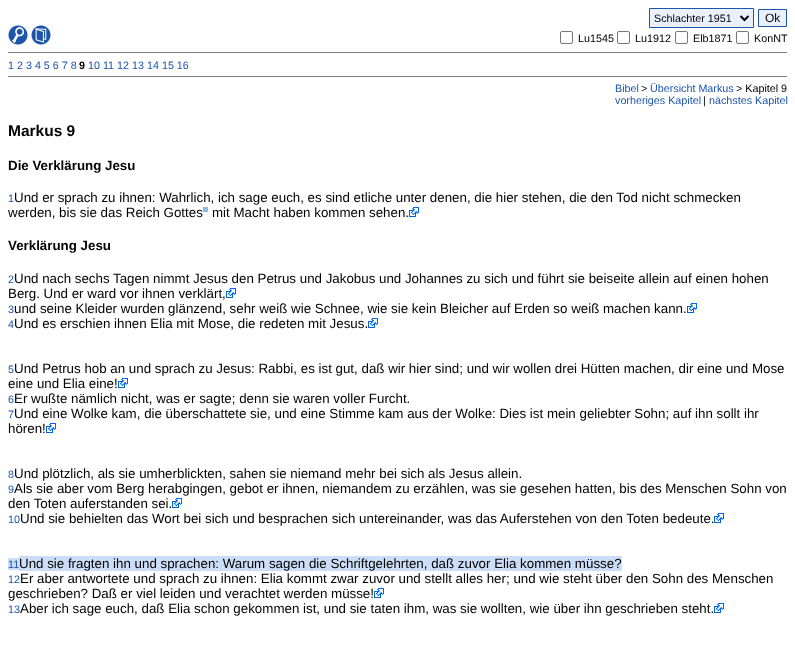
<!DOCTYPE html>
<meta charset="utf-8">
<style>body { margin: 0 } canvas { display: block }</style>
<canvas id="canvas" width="795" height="665"></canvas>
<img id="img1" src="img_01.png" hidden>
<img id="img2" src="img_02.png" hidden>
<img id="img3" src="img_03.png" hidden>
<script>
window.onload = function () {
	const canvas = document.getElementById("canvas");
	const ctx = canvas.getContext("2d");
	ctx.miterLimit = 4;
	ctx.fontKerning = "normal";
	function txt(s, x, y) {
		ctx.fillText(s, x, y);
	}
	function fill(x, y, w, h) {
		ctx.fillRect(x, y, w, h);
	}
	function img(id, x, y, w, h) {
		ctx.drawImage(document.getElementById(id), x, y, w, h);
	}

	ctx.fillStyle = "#FFFFFF";
	fill(0, 0, 795, 665);
	img("img1", 8, 25, 20, 20);
	img("img2", 31, 25, 20, 20);
	ctx.fillStyle = "#EBF1FC";
	ctx.beginPath();
	ctx.rect(649.5, 8.5, 104, 19);
	ctx.fill();
	ctx.strokeStyle = "#1C55AA";
	ctx.stroke();
	ctx.beginPath();
	ctx.moveTo(740.5, 16);
	ctx.lineTo(744.5, 20);
	ctx.lineTo(748.5, 16);
	ctx.strokeStyle = "#000000";
	ctx.lineWidth = 2;
	ctx.stroke();
	ctx.beginPath();
	ctx.rect(758.5, 9.5, 28, 17);
	ctx.fill();
	ctx.strokeStyle = "#1C55AA";
	ctx.lineWidth = 1;
	ctx.stroke();
	ctx.beginPath();
	ctx.roundRect(560.5, 31.5, 12, 12, 1.5);
	ctx.strokeStyle = "#767676";
	ctx.stroke();
	ctx.beginPath();
	ctx.roundRect(617.5, 31.5, 12, 12, 1.5);
	ctx.stroke();
	ctx.beginPath();
	ctx.roundRect(675.5, 31.5, 12, 12, 1.5);
	ctx.stroke();
	ctx.beginPath();
	ctx.roundRect(736.5, 31.5, 12, 12, 1.5);
	ctx.stroke();
	ctx.fillStyle = "#808080";
	fill(8, 52, 779, 1);
	fill(8, 76, 779, 1);
	ctx.fillStyle = "#8EBBDE";
	fill(203, 207, 5, 5);
	img("img3", 409, 207, 10, 10);
	img("img3", 226, 288, 10, 10);
	img("img3", 687, 303, 10, 10);
	img("img3", 368, 318, 10, 10);
	img("img3", 118, 378, 10, 10);
	img("img3", 46, 423, 10, 10);
	img("img3", 172, 498, 10, 10);
	img("img3", 714, 513, 10, 10);
	ctx.fillStyle = "#CCDDF7";
	fill(8, 558, 11, 12);
	fill(19, 556, 603, 15);
	img("img3", 374, 588, 10, 10);
	img("img3", 714, 603, 10, 10);
	ctx.font = "10.75px Liberation Sans";
	ctx.fillStyle = "#000000";
	txt("Schlachter 1951", 654, 22);
	ctx.font = "12px Liberation Sans";
	txt("Ok", 765, 22);
	ctx.font = "10.75px Liberation Sans";
	txt("Lu1545", 578, 42);
	txt("Lu1912", 635, 42);
	txt("Elb1871", 693, 42);
	txt("KonNT", 754, 42);
	ctx.fillStyle = "#1C55AA";
	txt("1 2 3 4 5 6 7 8", 8, 69);
	ctx.font = "bold 10.75px Liberation Sans";
	ctx.fillStyle = "#000000";
	txt("9", 79, 69);
	ctx.font = "10.75px Liberation Sans";
	ctx.fillStyle = "#1C55AA";
	txt("10 11 12 13 14 15 16", 88, 69);
	txt("Bibel", 615, 92);
	ctx.fillStyle = "#000000";
	txt(">", 641, 92);
	ctx.fillStyle = "#1C55AA";
	txt("Übersicht Markus", 650, 92);
	ctx.fillStyle = "#000000";
	txt("> Kapitel 9", 736, 92);
	ctx.fillStyle = "#1C55AA";
	txt("vorheriges Kapitel", 615, 104);
	ctx.fillStyle = "#000000";
	txt("|", 703, 104);
	ctx.fillStyle = "#1C55AA";
	txt("nächstes Kapitel", 709, 104);
	ctx.font = "bold 15.5px Liberation Sans";
	ctx.fillStyle = "#000000";
	txt("Markus 9", 8, 136);
	ctx.font = "bold 13.33px Liberation Sans";
	txt("Die Verklärung Jesu", 8, 170);
	ctx.font = "10.75px Liberation Sans";
	ctx.fillStyle = "#1C55AA";
	txt("1", 8, 202);
	ctx.font = "13.33px Liberation Sans";
	ctx.fillStyle = "#000000";
	txt("Und er sprach zu ihnen: Wahrlich, ich sage euch, es sind etliche unter denen, die hier stehen, die den Tod nicht schmecken", 14, 202);
	txt("werden, bis sie das Reich Gottes", 8, 217);
	txt("mit Macht haben kommen sehen.", 212, 217);
	ctx.font = "bold 13.33px Liberation Sans";
	txt("Verklärung Jesu", 8, 250);
	ctx.font = "10.75px Liberation Sans";
	ctx.fillStyle = "#1C55AA";
	txt("2", 8, 283);
	ctx.font = "13.33px Liberation Sans";
	ctx.fillStyle = "#000000";
	txt("Und nach sechs Tagen nimmt Jesus den Petrus und Jakobus und Johannes zu sich und führt sie beiseite allein auf einen hohen", 14, 283);
	txt("Berg. Und er ward vor ihnen verklärt,", 8, 298);
	ctx.font = "10.75px Liberation Sans";
	ctx.fillStyle = "#1C55AA";
	txt("3", 8, 313);
	ctx.font = "13.33px Liberation Sans";
	ctx.fillStyle = "#000000";
	txt("und seine Kleider wurden glänzend, sehr weiß wie Schnee, wie sie kein Bleicher auf Erden so weiß machen kann.", 14, 313);
	ctx.font = "10.75px Liberation Sans";
	ctx.fillStyle = "#1C55AA";
	txt("4", 8, 328);
	ctx.font = "13.33px Liberation Sans";
	ctx.fillStyle = "#000000";
	txt("Und es erschien ihnen Elia mit Mose, die redeten mit Jesus.", 14, 328);
	ctx.font = "10.75px Liberation Sans";
	ctx.fillStyle = "#1C55AA";
	txt("5", 8, 373);
	ctx.font = "13.33px Liberation Sans";
	ctx.fillStyle = "#000000";
	txt("Und Petrus hob an und sprach zu Jesus: Rabbi, es ist gut, daß wir hier sind; und wir wollen drei Hütten machen, dir eine und Mose", 14, 373);
	txt("eine und Elia eine!", 8, 388);
	ctx.font = "10.75px Liberation Sans";
	ctx.fillStyle = "#1C55AA";
	txt("6", 8, 403);
	ctx.font = "13.33px Liberation Sans";
	ctx.fillStyle = "#000000";
	txt("Er wußte nämlich nicht, was er sagte; denn sie waren voller Furcht.", 14, 403);
	ctx.font = "10.75px Liberation Sans";
	ctx.fillStyle = "#1C55AA";
	txt("7", 8, 418);
	ctx.font = "13.33px Liberation Sans";
	ctx.fillStyle = "#000000";
	txt("Und eine Wolke kam, die überschattete sie, und eine Stimme kam aus der Wolke: Dies ist mein geliebter Sohn; auf ihn sollt ihr", 14, 418);
	txt("hören!", 8, 433);
	ctx.font = "10.75px Liberation Sans";
	ctx.fillStyle = "#1C55AA";
	txt("8", 8, 478);
	ctx.font = "13.33px Liberation Sans";
	ctx.fillStyle = "#000000";
	txt("Und plötzlich, als sie umherblickten, sahen sie niemand mehr bei sich als Jesus allein.", 14, 478);
	ctx.font = "10.75px Liberation Sans";
	ctx.fillStyle = "#1C55AA";
	txt("9", 8, 493);
	ctx.font = "13.33px Liberation Sans";
	ctx.fillStyle = "#000000";
	txt("Als sie aber vom Berg herabgingen, gebot er ihnen, niemandem zu erzählen, was sie gesehen hatten, bis des Menschen Sohn von", 14, 493);
	txt("den Toten auferstanden sei.", 8, 508);
	ctx.font = "10.75px Liberation Sans";
	ctx.fillStyle = "#1C55AA";
	txt("10", 8, 523);
	ctx.font = "13.33px Liberation Sans";
	ctx.fillStyle = "#000000";
	txt("Und sie behielten das Wort bei sich und besprachen sich untereinander, was das Auferstehen von den Toten bedeute.", 20, 523);
	ctx.font = "10.75px Liberation Sans";
	ctx.fillStyle = "#1C55AA";
	txt("11", 8, 568);
	ctx.font = "13.33px Liberation Sans";
	ctx.fillStyle = "#000000";
	txt("Und sie fragten ihn und sprachen: Warum sagen die Schriftgelehrten, daß zuvor Elia kommen müsse?", 19, 568);
	ctx.font = "10.75px Liberation Sans";
	ctx.fillStyle = "#1C55AA";
	txt("12", 8, 583);
	ctx.font = "13.33px Liberation Sans";
	ctx.fillStyle = "#000000";
	txt("Er aber antwortete und sprach zu ihnen: Elia kommt zwar zuvor und stellt alles her; und wie steht über den Sohn des Menschen", 20, 583);
	txt("geschrieben? Daß er viel leiden und verachtet werden müsse!", 8, 598);
	ctx.font = "10.75px Liberation Sans";
	ctx.fillStyle = "#1C55AA";
	txt("13", 8, 613);
	ctx.font = "13.33px Liberation Sans";
	ctx.fillStyle = "#000000";
	txt("Aber ich sage euch, daß Elia schon gekommen ist, und sie taten ihm, was sie wollten, wie über ihn geschrieben steht.", 20, 613);
};
</script>
